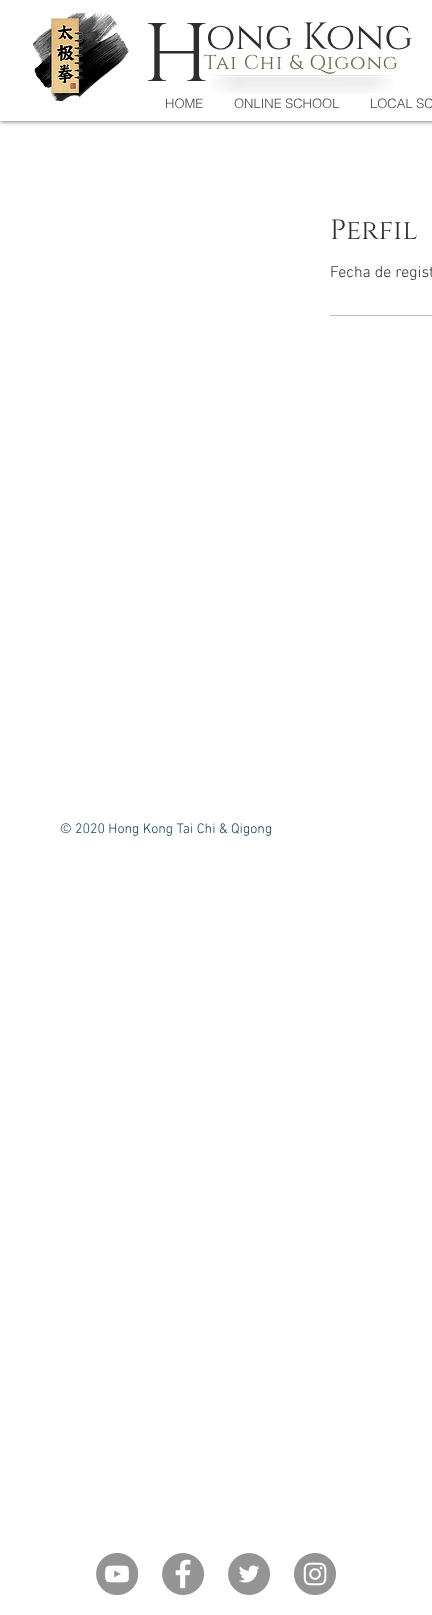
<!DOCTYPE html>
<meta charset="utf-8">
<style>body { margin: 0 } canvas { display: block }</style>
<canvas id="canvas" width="432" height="1615"></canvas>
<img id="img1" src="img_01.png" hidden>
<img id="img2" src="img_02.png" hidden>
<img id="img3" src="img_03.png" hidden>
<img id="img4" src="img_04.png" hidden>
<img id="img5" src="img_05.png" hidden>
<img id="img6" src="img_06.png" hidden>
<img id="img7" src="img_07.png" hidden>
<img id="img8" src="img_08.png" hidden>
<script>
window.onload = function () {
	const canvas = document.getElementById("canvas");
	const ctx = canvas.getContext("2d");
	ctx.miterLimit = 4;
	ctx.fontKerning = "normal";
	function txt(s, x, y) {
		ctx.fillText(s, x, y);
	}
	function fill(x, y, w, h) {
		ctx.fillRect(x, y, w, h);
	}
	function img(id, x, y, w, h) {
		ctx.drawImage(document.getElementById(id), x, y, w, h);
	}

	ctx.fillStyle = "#FFFFFF";
	fill(0, 0, 432, 1615);
	ctx.fillStyle = "rgba(0, 0, 0, 0.7)";
	ctx.filter = "blur(2.5px)";
	ctx.beginPath();
	ctx.rect(0, 0, 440, 121);
	ctx.fill();
	ctx.filter = "none";
	ctx.fillStyle = "#FFFFFF";
	fill(0, 0, 432, 121);
	img("img1", 33, 13, 96, 88);
	img("img2", 210, 75, 24, 18);
	img("img3", 234, 75, 136, 19);
	img("img4", 370, 75, 24, 18);
	ctx.fillStyle = "#C1C0C0";
	fill(330, 315, 102, 1);
	img("img5", 96, 1553, 42, 42);
	img("img6", 162, 1553, 42, 42);
	img("img7", 228, 1553, 42, 42);
	img("img8", 294, 1553, 42, 42);
	ctx.font = "38px Cinzel";
	ctx.fillStyle = "#2F2E2E";
	txt("ong Kong", 206, 49);
	ctx.letterSpacing = "1px";
	ctx.font = "20px Cinzel";
	ctx.fillStyle = "#6D6141";
	txt("Tai Chi & Qigong", 204, 69);
	ctx.letterSpacing = "0px";
	ctx.font = "83px Cinzel";
	ctx.fillStyle = "#2F2E2E";
	txt("H", 143, 81);
	ctx.font = "300 13px helvetica";
	ctx.fillStyle = "#444444";
	txt("HOME", 165, 108);
	txt("ONLINE SCHOOL", 234, 108);
	txt("LOCAL SC", 370, 108);
	ctx.font = "28px Cinzel";
	ctx.fillStyle = "#2F2E2E";
	txt("Perfil", 330, 239);
	ctx.font = "300 16px 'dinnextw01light'";
	txt("Fecha de regist", 330, 277);
	ctx.font = "300 14px 'dinnextw01light'";
	ctx.fillStyle = "#0E3C53";
	txt("© 2020 Hong Kong Tai Chi & Qigong", 60, 833);
};
</script>
